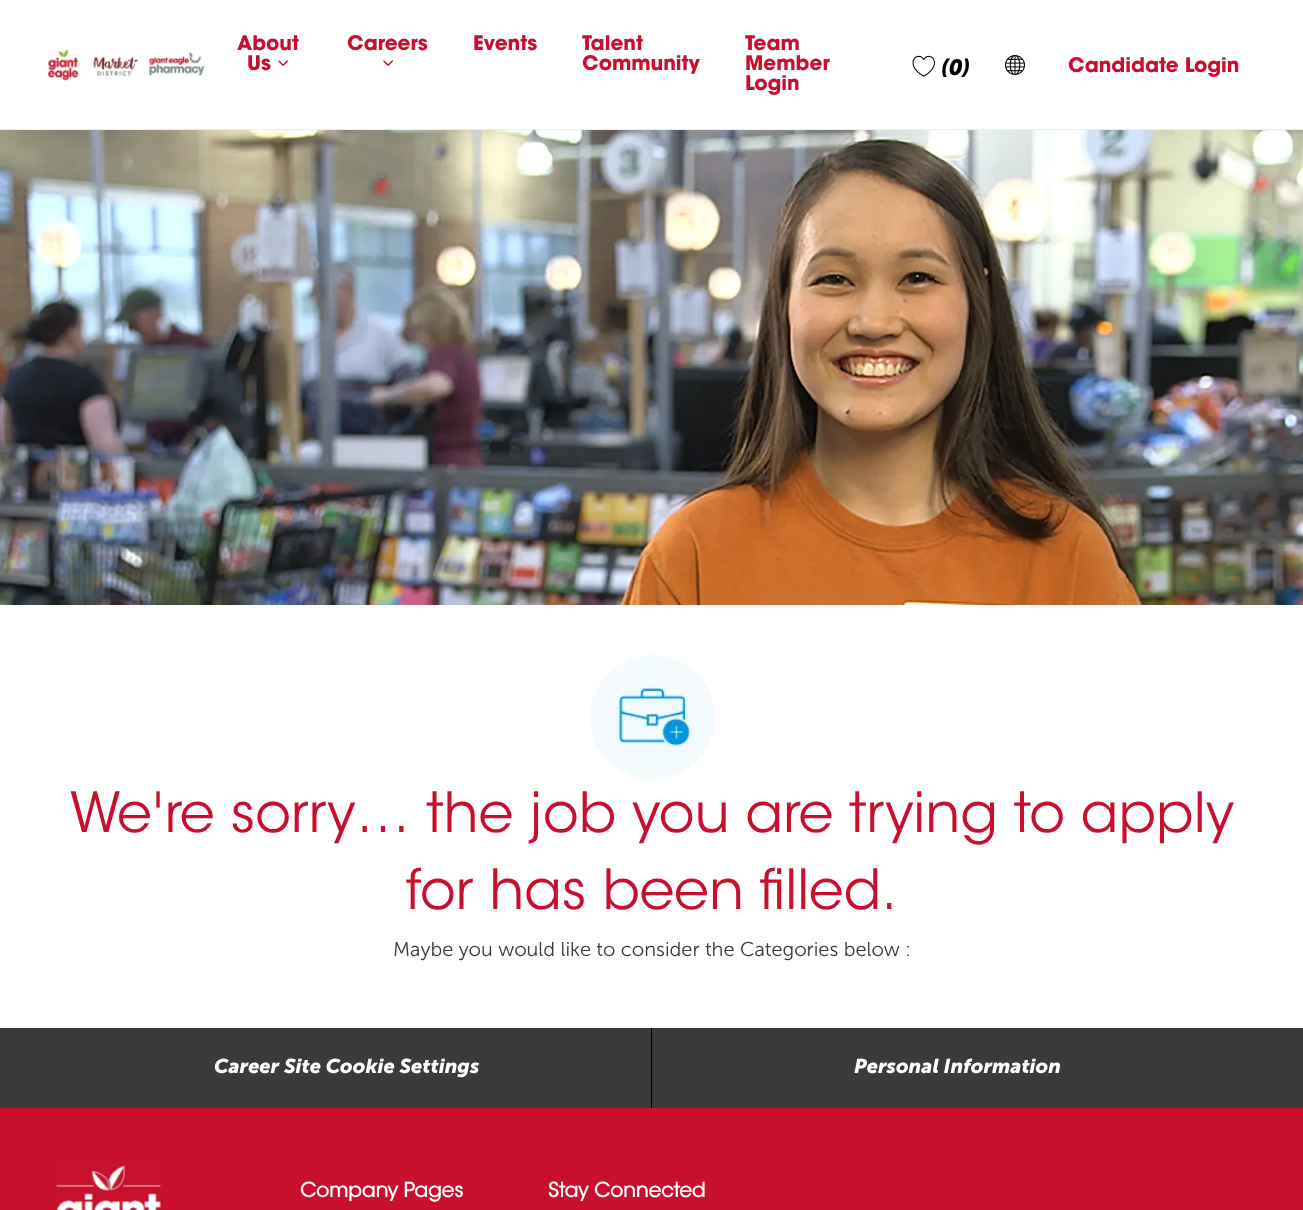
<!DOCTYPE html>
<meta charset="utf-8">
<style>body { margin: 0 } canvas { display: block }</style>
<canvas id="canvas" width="1303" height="1210"></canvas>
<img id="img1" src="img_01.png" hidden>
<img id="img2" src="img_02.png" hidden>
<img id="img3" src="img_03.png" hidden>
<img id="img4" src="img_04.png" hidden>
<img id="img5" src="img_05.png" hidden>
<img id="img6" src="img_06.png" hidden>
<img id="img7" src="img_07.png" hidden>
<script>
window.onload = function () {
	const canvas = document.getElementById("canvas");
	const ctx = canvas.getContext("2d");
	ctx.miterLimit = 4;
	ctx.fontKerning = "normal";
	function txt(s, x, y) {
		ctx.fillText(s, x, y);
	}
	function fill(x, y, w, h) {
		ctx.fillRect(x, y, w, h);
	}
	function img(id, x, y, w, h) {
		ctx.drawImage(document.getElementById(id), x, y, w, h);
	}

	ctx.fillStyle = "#FFFFFF";
	fill(0, 0, 1303, 1210);
	ctx.fillStyle = "#E8EFF5";
	fill(0, 129, 1303, 1);
	img("img1", 47, 49, 158, 33);
	img("img2", 278, 60, 10, 6);
	img("img2", 383, 60, 10, 6);
	img("img3", 912, 55, 23, 22);
	img("img4", 1005, 55, 20, 20);
	img("img5", 0, 130, 1303, 475);
	img("img6", 590, 655, 125, 125);
	ctx.fillStyle = "#C8102E";
	fill(0, 1108, 1303, 102);
	ctx.fillStyle = "#3A3A3A";
	fill(0, 1028, 1303, 80);
	ctx.fillStyle = "#000000";
	fill(651, 1028, 1, 80);
	img("img7", 56, 1165, 105, 45);
	ctx.font = "bold 20px 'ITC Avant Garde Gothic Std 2'";
	ctx.fillStyle = "#C8102E";
	txt("About", 237, 50);
	txt("Us", 247, 70);
	txt("Careers", 347, 50);
	txt("Events", 473, 50);
	txt("Talent", 582, 50);
	txt("Community", 582, 70);
	txt("Team", 745, 50);
	txt("Member", 745, 70);
	txt("Login", 745, 90);
	ctx.font = "italic bold 22px Museo Sans";
	ctx.fillStyle = "#000000";
	txt("(0)", 941, 75);
	ctx.font = "bold 20px 'ITC Avant Garde Gothic Std 2'";
	ctx.fillStyle = "#C8102E";
	txt("Candidate Login", 1068, 72);
	ctx.font = "300 55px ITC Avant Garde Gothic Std";
	txt("We're sorry… the job you are trying to apply", 70, 832);
	txt("for has been filled.", 406, 909);
	ctx.font = "300 20px Museo Sans";
	ctx.fillStyle = "#393939";
	txt("Maybe you would like to consider the Categories below :", 393, 956);
	ctx.font = "italic bold 20px Museo Sans";
	ctx.fillStyle = "#FFFFFF";
	txt("Career Site Cookie Settings", 214, 1073);
	txt("Personal Information", 854, 1073);
	ctx.font = "bold 20px ITC Avant Garde Gothic Std";
	txt("Company Pages", 300, 1197);
	txt("Stay Connected", 548, 1197);
};
</script>
